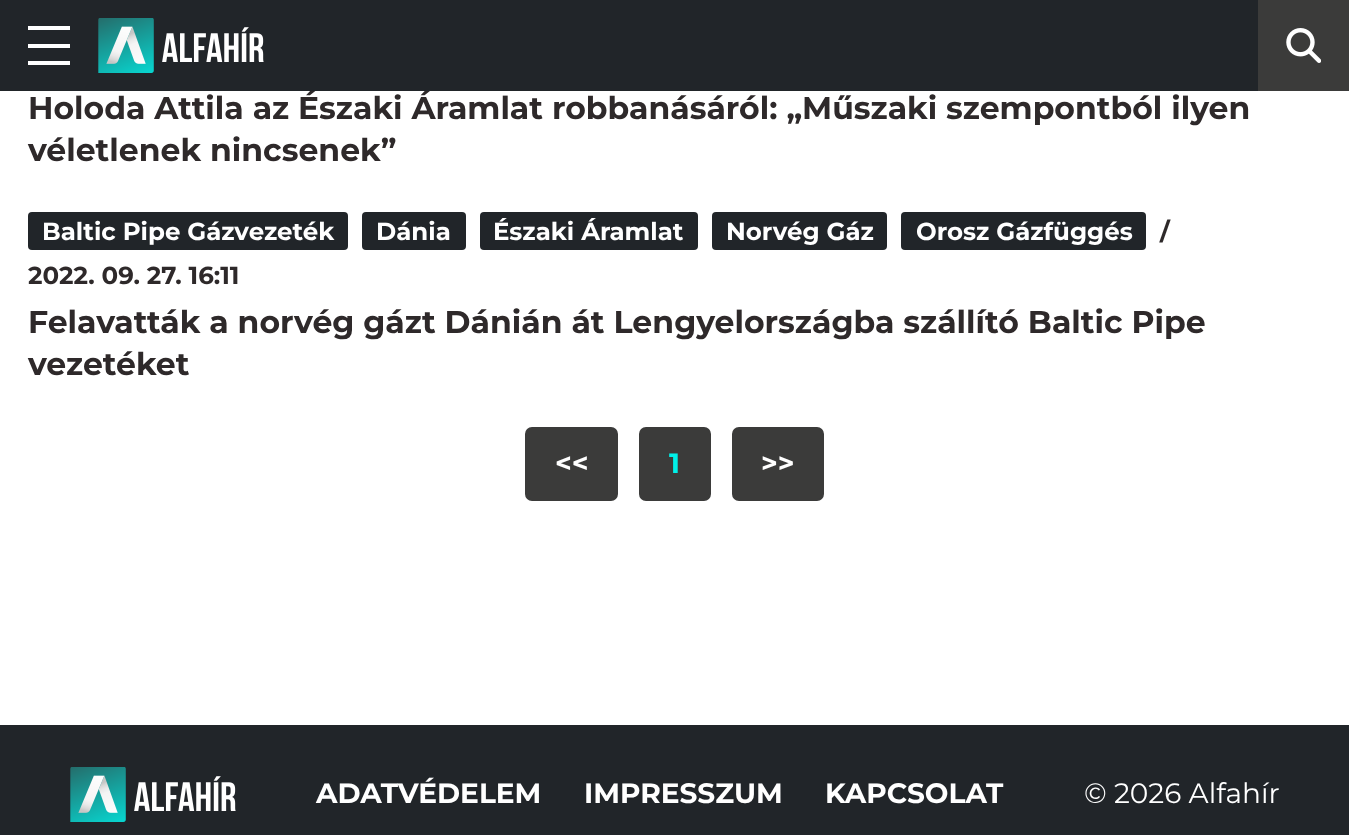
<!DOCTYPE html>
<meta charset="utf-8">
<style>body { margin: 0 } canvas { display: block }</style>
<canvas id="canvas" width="1349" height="835"></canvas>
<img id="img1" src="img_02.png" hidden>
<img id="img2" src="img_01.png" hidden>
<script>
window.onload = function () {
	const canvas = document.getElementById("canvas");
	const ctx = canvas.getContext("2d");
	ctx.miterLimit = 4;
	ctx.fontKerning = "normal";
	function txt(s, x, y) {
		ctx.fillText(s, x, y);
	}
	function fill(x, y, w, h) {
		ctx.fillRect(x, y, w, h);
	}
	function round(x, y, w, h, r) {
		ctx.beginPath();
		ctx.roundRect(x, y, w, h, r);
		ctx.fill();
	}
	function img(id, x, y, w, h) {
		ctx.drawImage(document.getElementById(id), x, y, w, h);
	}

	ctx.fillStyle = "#FFFFFF";
	fill(0, 0, 1349, 835);
	ctx.fillStyle = "#3B3B3A";
	fill(1258, 0, 91, 91);
	img("img1", 1286, 28, 35, 35);
	ctx.fillStyle = "#212529";
	round(28, 212, 320, 38, 4);
	round(362, 212, 104, 38, 4);
	round(480, 212, 218, 38, 4);
	round(712, 212, 175, 38, 4);
	round(901, 212, 245, 38, 4);
	ctx.fillStyle = "#3B3B3A";
	ctx.beginPath();
	ctx.roundRect(526, 428, 91, 72, 6);
	ctx.fill();
	ctx.strokeStyle = "#3B3B3A";
	ctx.lineWidth = 2;
	ctx.stroke();
	ctx.beginPath();
	ctx.roundRect(640, 428, 70, 72, 6);
	ctx.fill();
	ctx.stroke();
	ctx.beginPath();
	ctx.roundRect(733, 428, 90, 72, 6);
	ctx.fill();
	ctx.stroke();
	ctx.fillStyle = "#212529";
	fill(0, 725, 1349, 110);
	img("img2", 70, 767, 166, 55);
	ctx.font = "bold 31.5px Montserrat";
	ctx.fillStyle = "#2E292A";
	txt("Holoda Attila az Északi Áramlat robbanásáról: „Műszaki szempontból ilyen", 28, 119);
	ctx.fillStyle = "#212529";
	fill(0, 0, 1258, 91);
	ctx.fillStyle = "#FFFFFF";
	fill(28, 61, 42, 4);
	fill(28, 44, 42, 4);
	fill(28, 26, 42, 4);
	img("img2", 98, 18, 166, 55);
	ctx.fillStyle = "#2E292A";
	txt("véletlenek nincsenek”", 28, 161);
	ctx.font = "bold 24.5px Montserrat";
	ctx.fillStyle = "#FFFFFF";
	txt("Baltic Pipe Gázvezeték", 42, 240);
	txt("Dánia", 376, 240);
	txt("Északi Áramlat", 493, 240);
	txt("Norvég Gáz", 726, 240);
	txt("Orosz Gázfüggés", 916, 240);
	ctx.fillStyle = "#2E292A";
	txt("/", 1160, 240);
	txt("2022. 09. 27. 16:11", 28, 284);
	ctx.font = "bold 31.5px Montserrat";
	txt("Felavatták a norvég gázt Dánián át Lengyelországba szállító Baltic Pipe", 28, 333);
	txt("vezetéket", 28, 375);
	ctx.font = "bold 28px Montserrat";
	ctx.fillStyle = "#FFFFFF";
	txt("<<", 555, 473);
	ctx.fillStyle = "#00F0E8";
	txt("1", 669, 473);
	ctx.fillStyle = "#FFFFFF";
	txt(">>", 761, 473);
	txt("ADATVÉDELEM", 316, 803);
	txt("IMPRESSZUM", 584, 803);
	txt("KAPCSOLAT", 825, 803);
	ctx.font = "28px Montserrat";
	txt("© 2026 Alfahír", 1084, 803);
};
</script>
